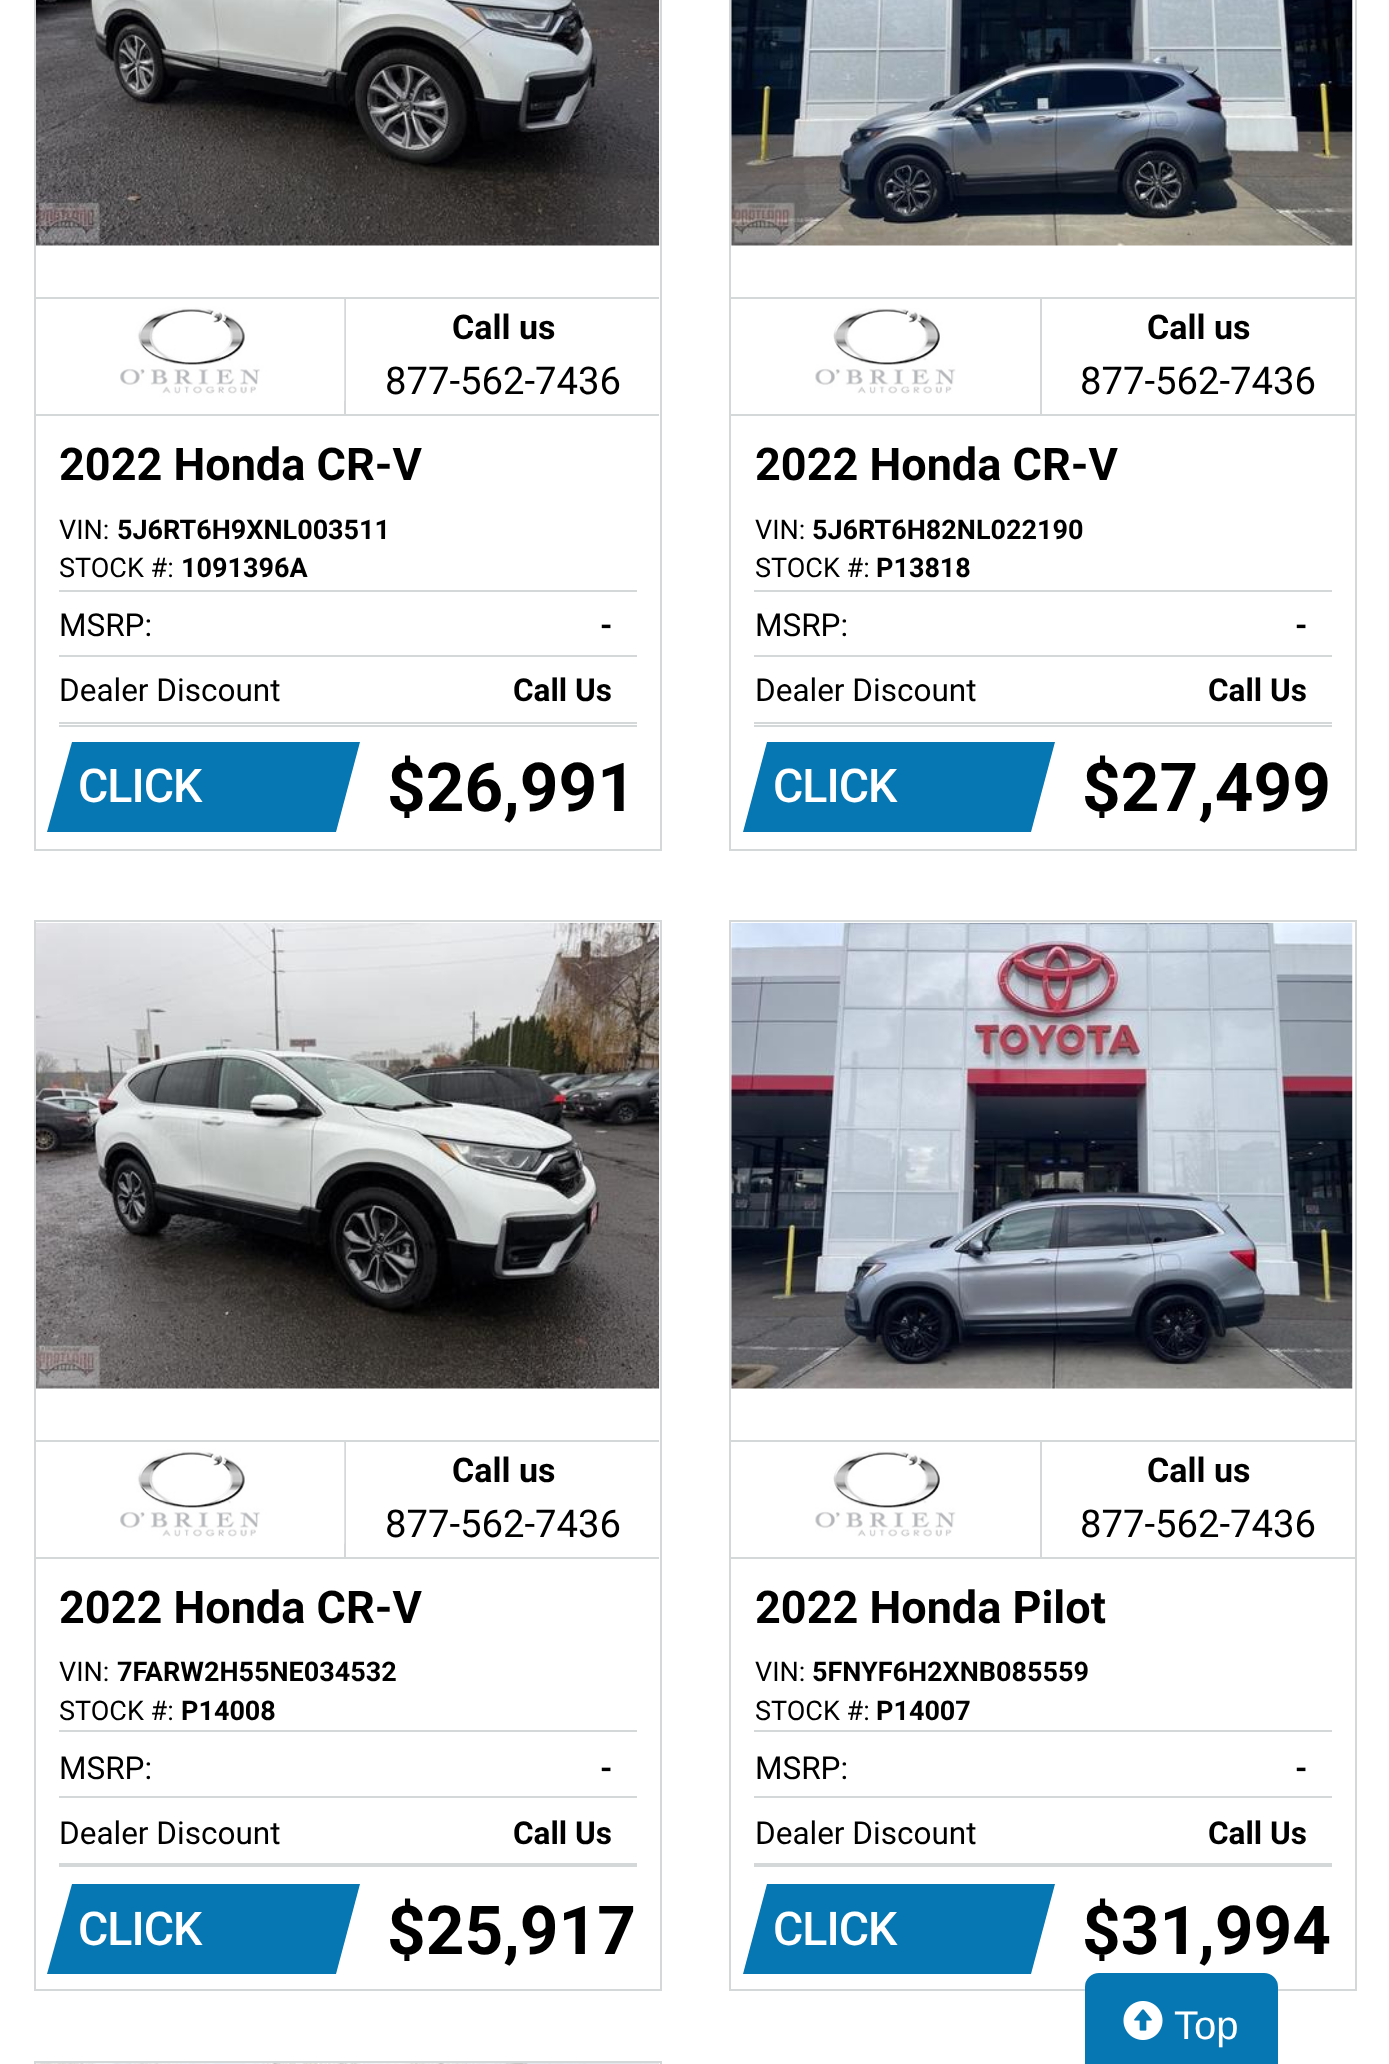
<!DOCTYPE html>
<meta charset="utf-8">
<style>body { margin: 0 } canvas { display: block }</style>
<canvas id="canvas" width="1389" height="2064"></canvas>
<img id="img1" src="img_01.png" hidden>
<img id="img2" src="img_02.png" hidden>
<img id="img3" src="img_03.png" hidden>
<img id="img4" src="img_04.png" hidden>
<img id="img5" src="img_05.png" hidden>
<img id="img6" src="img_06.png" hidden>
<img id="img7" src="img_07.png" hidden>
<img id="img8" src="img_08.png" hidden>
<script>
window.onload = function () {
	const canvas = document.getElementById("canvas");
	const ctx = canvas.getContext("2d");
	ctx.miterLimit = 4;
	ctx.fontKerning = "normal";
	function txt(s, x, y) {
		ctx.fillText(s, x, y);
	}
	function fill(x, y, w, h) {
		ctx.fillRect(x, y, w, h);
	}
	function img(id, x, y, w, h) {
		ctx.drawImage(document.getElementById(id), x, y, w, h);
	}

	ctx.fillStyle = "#FFFFFF";
	fill(0, 0, 1389, 2064);
	ctx.strokeStyle = "#D4D8D9";
	ctx.lineWidth = 2;
	ctx.strokeRect(35, -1, 626, 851);
	img("img1", 36, 0, 624, 246);
	ctx.fillStyle = "#D4D8D9";
	fill(36, 297, 623, 2);
	fill(344, 297, 2, 119);
	fill(36, 414, 623, 2);
	img("img2", 120, 299, 225, 102);
	fill(59, 590, 578, 2);
	fill(59, 655, 578, 2);
	fill(59, 722, 578, 2);
	fill(59, 725, 578, 2);
	ctx.fillStyle = "#0777B3";
	ctx.beginPath();
	ctx.moveTo(72, 742);
	ctx.lineTo(360, 742);
	ctx.lineTo(336, 832);
	ctx.lineTo(47, 832);
	ctx.closePath();
	ctx.fill();
	ctx.strokeRect(730, -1, 626, 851);
	img("img3", 731, 0, 622, 246);
	ctx.fillStyle = "#D4D8D9";
	fill(731, 297, 624, 2);
	fill(1040, 297, 2, 119);
	fill(731, 414, 624, 2);
	img("img4", 815, 308, 141, 86);
	fill(754, 590, 578, 2);
	fill(754, 655, 578, 2);
	fill(754, 722, 578, 2);
	fill(754, 725, 578, 2);
	ctx.fillStyle = "#0777B3";
	ctx.beginPath();
	ctx.moveTo(767, 742);
	ctx.lineTo(1055, 742);
	ctx.lineTo(1031, 832);
	ctx.lineTo(743, 832);
	ctx.closePath();
	ctx.fill();
	ctx.strokeRect(35, 921, 626, 1069);
	img("img5", 36, 922, 624, 467);
	ctx.fillStyle = "#D4D8D9";
	fill(36, 1440, 623, 2);
	fill(344, 1440, 2, 119);
	fill(36, 1557, 623, 2);
	img("img2", 120, 1442, 225, 102);
	fill(59, 1730, 578, 2);
	fill(59, 1796, 578, 2);
	fill(59, 1863, 578, 4);
	ctx.fillStyle = "#0777B3";
	ctx.beginPath();
	ctx.moveTo(72, 1884);
	ctx.lineTo(360, 1884);
	ctx.lineTo(336, 1974);
	ctx.lineTo(47, 1974);
	ctx.closePath();
	ctx.fill();
	ctx.strokeRect(730, 921, 626, 1069);
	img("img6", 731, 922, 622, 467);
	ctx.fillStyle = "#D4D8D9";
	fill(731, 1440, 624, 2);
	fill(1040, 1440, 2, 119);
	fill(731, 1557, 624, 2);
	img("img4", 815, 1451, 141, 86);
	fill(754, 1730, 578, 2);
	fill(754, 1796, 578, 2);
	fill(754, 1863, 578, 4);
	ctx.fillStyle = "#0777B3";
	ctx.beginPath();
	ctx.moveTo(767, 1884);
	ctx.lineTo(1055, 1884);
	ctx.lineTo(1031, 1974);
	ctx.lineTo(743, 1974);
	ctx.closePath();
	ctx.fill();
	ctx.strokeRect(35, 2062, 626, 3);
	img("img7", 36, 2063, 623, 1);
	ctx.beginPath();
	ctx.roundRect(1086, 1974, 191, 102, 13);
	ctx.fill();
	ctx.strokeStyle = "#0777B3";
	ctx.stroke();
	img("img8", 1123, 2001, 40, 39);
	ctx.font = "bold 34px Roboto";
	ctx.fillStyle = "#000000";
	txt("Call us", 452, 339);
	ctx.font = "38.25px Roboto";
	txt("877-562-7436", 385, 394);
	ctx.font = "bold 45px Roboto";
	txt("2022 Honda CR-V", 59, 480);
	ctx.font = "27px Roboto";
	txt("VIN:", 59, 539);
	ctx.font = "bold 27px Roboto";
	txt("5J6RT6H9XNL003511", 117, 539);
	ctx.font = "27px Roboto";
	txt("STOCK #:", 59, 577);
	ctx.font = "bold 27px Roboto";
	txt("1091396A", 181, 577);
	ctx.font = "31.5px Roboto";
	txt("MSRP:", 59, 636);
	ctx.font = "bold 31.5px Roboto";
	txt("-", 600, 636);
	ctx.font = "31.5px Roboto";
	txt("Dealer Discount", 59, 701);
	ctx.font = "bold 31.5px Roboto";
	txt("Call Us", 513, 701);
	ctx.letterSpacing = "-1px";
	ctx.font = "500 46.5px Roboto";
	ctx.fillStyle = "#FFFFFF";
	txt("CLICK", 78, 802);
	ctx.letterSpacing = "0px";
	ctx.font = "bold 67.5px Roboto";
	ctx.fillStyle = "#000000";
	txt("$26,991", 387, 811);
	ctx.font = "bold 34px Roboto";
	txt("Call us", 1147, 339);
	ctx.font = "38.25px Roboto";
	txt("877-562-7436", 1080, 394);
	ctx.font = "bold 45px Roboto";
	txt("2022 Honda CR-V", 755, 480);
	ctx.font = "27px Roboto";
	txt("VIN:", 755, 539);
	ctx.font = "bold 27px Roboto";
	txt("5J6RT6H82NL022190", 812, 539);
	ctx.font = "27px Roboto";
	txt("STOCK #:", 755, 577);
	ctx.font = "bold 27px Roboto";
	txt("P13818", 876, 577);
	ctx.font = "31.5px Roboto";
	txt("MSRP:", 755, 636);
	ctx.font = "bold 31.5px Roboto";
	txt("-", 1295, 636);
	ctx.font = "31.5px Roboto";
	txt("Dealer Discount", 755, 701);
	ctx.font = "bold 31.5px Roboto";
	txt("Call Us", 1208, 701);
	ctx.letterSpacing = "-1px";
	ctx.font = "500 46.5px Roboto";
	ctx.fillStyle = "#FFFFFF";
	txt("CLICK", 773, 802);
	ctx.letterSpacing = "0px";
	ctx.font = "bold 67.5px Roboto";
	ctx.fillStyle = "#000000";
	txt("$27,499", 1082, 811);
	ctx.font = "bold 34px Roboto";
	txt("Call us", 452, 1482);
	ctx.font = "38.25px Roboto";
	txt("877-562-7436", 385, 1537);
	ctx.font = "bold 45px Roboto";
	txt("2022 Honda CR-V", 59, 1623);
	ctx.font = "27px Roboto";
	txt("VIN:", 59, 1681);
	ctx.font = "bold 27px Roboto";
	txt("7FARW2H55NE034532", 117, 1681);
	ctx.font = "27px Roboto";
	txt("STOCK #:", 59, 1720);
	ctx.font = "bold 27px Roboto";
	txt("P14008", 181, 1720);
	ctx.font = "31.5px Roboto";
	txt("MSRP:", 59, 1779);
	ctx.font = "bold 31.5px Roboto";
	txt("-", 600, 1779);
	ctx.font = "31.5px Roboto";
	txt("Dealer Discount", 59, 1844);
	ctx.font = "bold 31.5px Roboto";
	txt("Call Us", 513, 1844);
	ctx.letterSpacing = "-1px";
	ctx.font = "500 46.5px Roboto";
	ctx.fillStyle = "#FFFFFF";
	txt("CLICK", 78, 1945);
	ctx.letterSpacing = "0px";
	ctx.font = "bold 67.5px Roboto";
	ctx.fillStyle = "#000000";
	txt("$25,917", 387, 1954);
	ctx.font = "bold 34px Roboto";
	txt("Call us", 1147, 1482);
	ctx.font = "38.25px Roboto";
	txt("877-562-7436", 1080, 1537);
	ctx.font = "bold 45px Roboto";
	txt("2022 Honda Pilot", 755, 1623);
	ctx.font = "27px Roboto";
	txt("VIN:", 755, 1681);
	ctx.font = "bold 27px Roboto";
	txt("5FNYF6H2XNB085559", 812, 1681);
	ctx.font = "27px Roboto";
	txt("STOCK #:", 755, 1720);
	ctx.font = "bold 27px Roboto";
	txt("P14007", 876, 1720);
	ctx.font = "31.5px Roboto";
	txt("MSRP:", 755, 1779);
	ctx.font = "bold 31.5px Roboto";
	txt("-", 1295, 1779);
	ctx.font = "31.5px Roboto";
	txt("Dealer Discount", 755, 1844);
	ctx.font = "bold 31.5px Roboto";
	txt("Call Us", 1208, 1844);
	ctx.letterSpacing = "-1px";
	ctx.font = "500 46.5px Roboto";
	ctx.fillStyle = "#FFFFFF";
	txt("CLICK", 773, 1945);
	ctx.letterSpacing = "0px";
	ctx.font = "bold 67.5px Roboto";
	ctx.fillStyle = "#000000";
	txt("$31,994", 1082, 1954);
	ctx.font = "40px Liberation Sans";
	ctx.fillStyle = "#FFFFFF";
	txt("Top", 1174, 2039);
};
</script>
